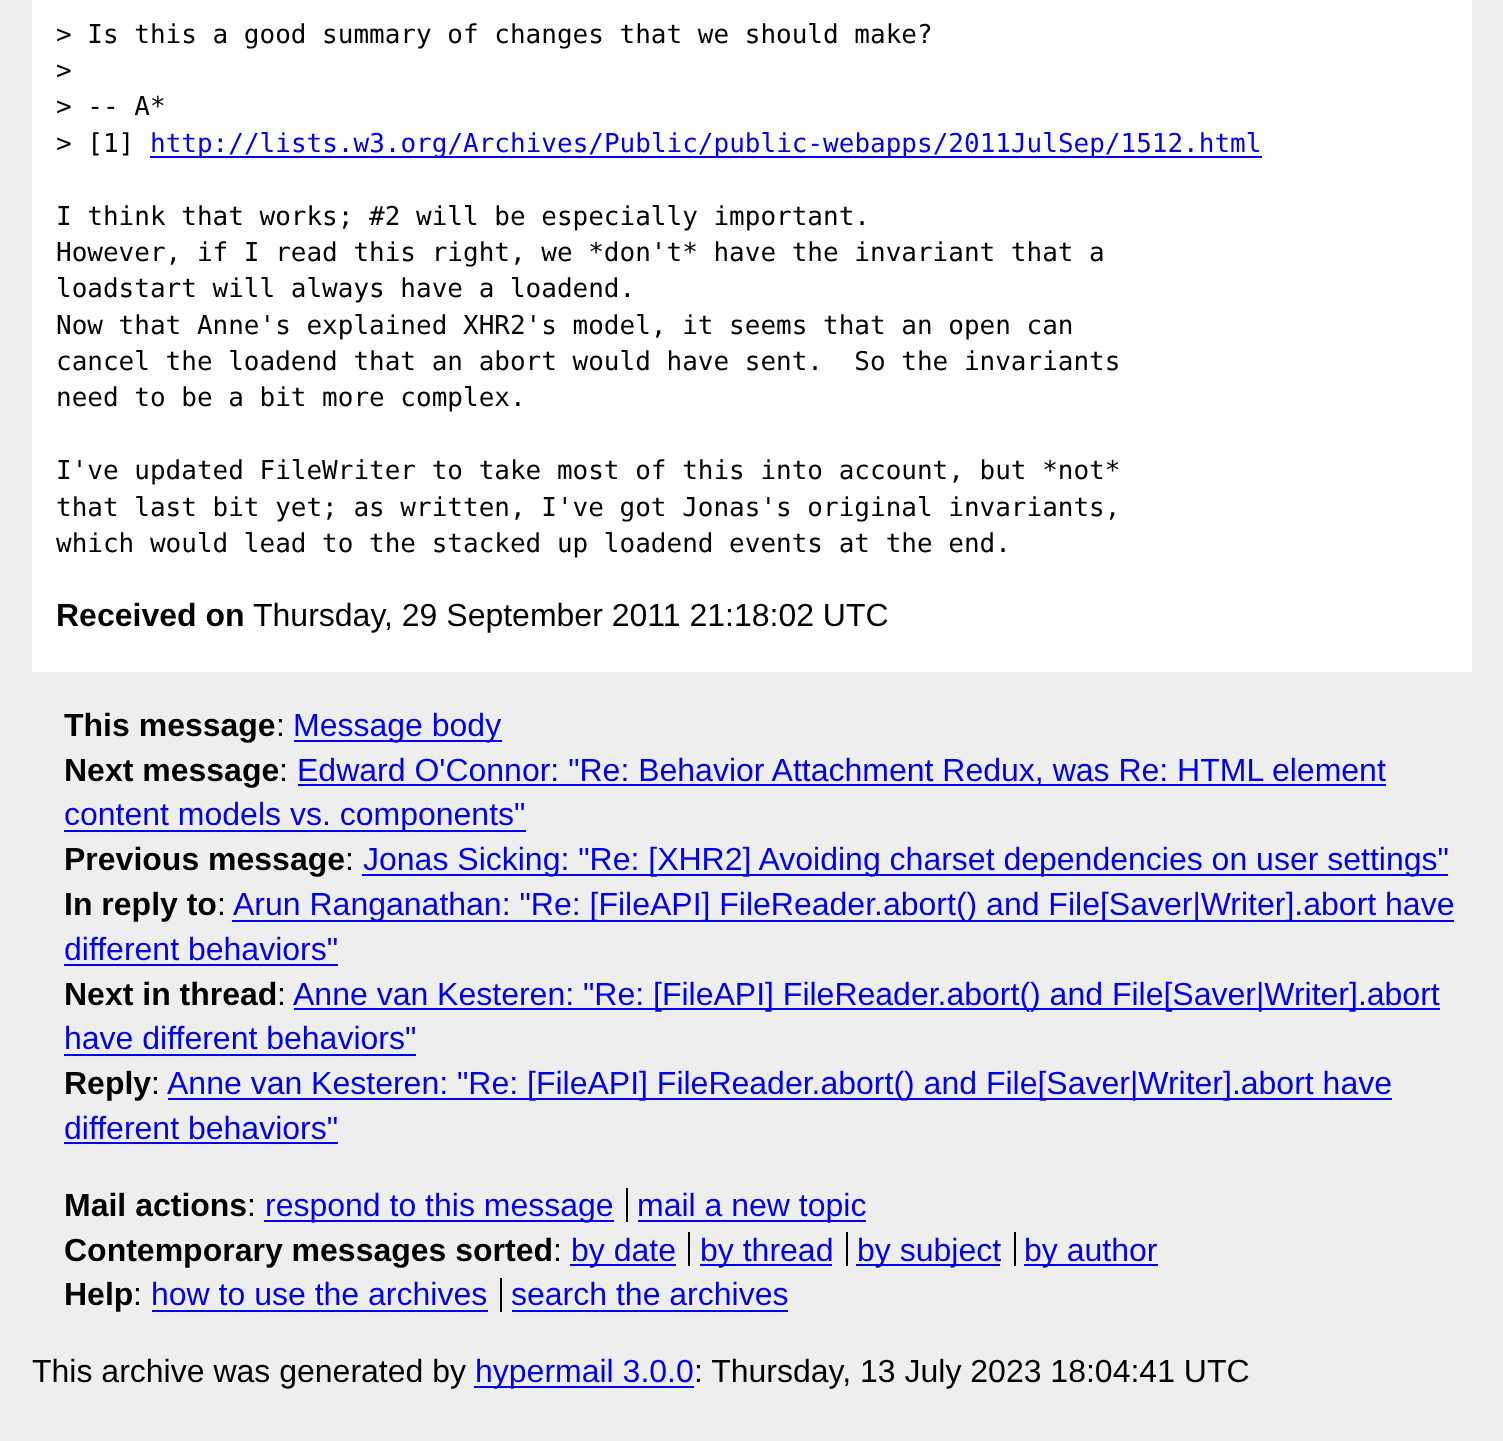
<!DOCTYPE html>
<meta charset="utf-8">
<style>body { margin: 0 } canvas { display: block }</style>
<canvas id="canvas" width="1503" height="1441"></canvas>
<script>
window.onload = function () {
	const canvas = document.getElementById("canvas");
	const ctx = canvas.getContext("2d");
	ctx.miterLimit = 4;
	ctx.fontKerning = "normal";
	function txt(s, x, y) {
		ctx.fillText(s, x, y);
	}
	function fill(x, y, w, h) {
		ctx.fillRect(x, y, w, h);
	}

	ctx.fillStyle = "#EEEEEE";
	fill(0, 0, 1503, 1441);
	ctx.fillStyle = "#FFFFFF";
	fill(32, 0, 1440, 672);
	ctx.fillStyle = "#0000EE";
	fill(150, 156, 1112, 2);
	fill(294, 740, 208, 2);
	fill(298, 784, 1088, 2);
	fill(64, 830, 462, 2);
	fill(362, 874, 1086, 2);
	fill(232, 920, 1222, 2);
	fill(64, 964, 274, 2);
	fill(294, 1008, 1146, 2);
	fill(64, 1054, 352, 2);
	fill(168, 1098, 1224, 2);
	fill(64, 1142, 274, 2);
	fill(264, 1220, 350, 2);
	ctx.fillStyle = "#000000";
	fill(626, 1188, 2, 34);
	ctx.fillStyle = "#0000EE";
	fill(638, 1220, 228, 2);
	fill(570, 1264, 106, 2);
	ctx.fillStyle = "#000000";
	fill(688, 1232, 2, 34);
	ctx.fillStyle = "#0000EE";
	fill(700, 1264, 132, 2);
	ctx.fillStyle = "#000000";
	fill(846, 1232, 2, 34);
	ctx.fillStyle = "#0000EE";
	fill(856, 1264, 144, 2);
	ctx.fillStyle = "#000000";
	fill(1014, 1232, 2, 34);
	ctx.fillStyle = "#0000EE";
	fill(1024, 1264, 134, 2);
	fill(152, 1310, 336, 2);
	ctx.fillStyle = "#000000";
	fill(500, 1278, 2, 34);
	ctx.fillStyle = "#0000EE";
	fill(512, 1310, 276, 2);
	fill(474, 1386, 220, 2);
	ctx.font = "26px DejaVu Sans Mono";
	ctx.fillStyle = "#000000";
	txt("> Is this a good summary of changes that we should make?", 56, 43);
	txt(">", 56, 79);
	txt("> -- A*", 56, 115);
	txt("> [1]", 56, 152);
	ctx.fillStyle = "#0000EE";
	txt("http://lists.w3.org/Archives/Public/public-webapps/2011JulSep/1512.html", 150, 152);
	ctx.fillStyle = "#000000";
	txt("I think that works; #2 will be especially important.", 56, 225);
	txt("However, if I read this right, we *don't* have the invariant that a", 56, 261);
	txt("loadstart will always have a loadend.", 56, 297);
	txt("Now that Anne's explained XHR2's model, it seems that an open can", 56, 334);
	txt("cancel the loadend that an abort would have sent.  So the invariants", 56, 370);
	txt("need to be a bit more complex.", 56, 406);
	txt("I've updated FileWriter to take most of this into account, but *not*", 56, 479);
	txt("that last bit yet; as written, I've got Jonas's original invariants,", 56, 516);
	txt("which would lead to the stacked up loadend events at the end.", 56, 552);
	ctx.font = "bold 32px Liberation Sans";
	txt("Received on", 56, 626);
	ctx.font = "32px Liberation Sans";
	txt("Thursday, 29 September 2011 21:18:02 UTC", 253, 626);
	ctx.font = "bold 32px Liberation Sans";
	txt("This message", 64, 736);
	ctx.font = "32px Liberation Sans";
	txt(":", 276, 736);
	ctx.fillStyle = "#0000EE";
	txt("Message body", 293, 736);
	ctx.font = "bold 32px Liberation Sans";
	ctx.fillStyle = "#000000";
	txt("Next message", 64, 781);
	ctx.font = "32px Liberation Sans";
	txt(":", 279, 781);
	ctx.fillStyle = "#0000EE";
	txt("Edward O'Connor: \"Re: Behavior Attachment Redux, was Re: HTML element", 297, 781);
	txt("content models vs. components\"", 64, 825);
	ctx.font = "bold 32px Liberation Sans";
	ctx.fillStyle = "#000000";
	txt("Previous message", 64, 870);
	ctx.font = "32px Liberation Sans";
	txt(":", 345, 870);
	ctx.fillStyle = "#0000EE";
	txt("Jonas Sicking: \"Re: [XHR2] Avoiding charset dependencies on user settings\"", 363, 870);
	ctx.font = "bold 32px Liberation Sans";
	ctx.fillStyle = "#000000";
	txt("In reply to", 64, 915);
	ctx.font = "32px Liberation Sans";
	txt(":", 217, 915);
	ctx.fillStyle = "#0000EE";
	txt("Arun Ranganathan: \"Re: [FileAPI] FileReader.abort() and File[Saver|Writer].abort have", 233, 915);
	txt("different behaviors\"", 64, 960);
	ctx.font = "bold 32px Liberation Sans";
	ctx.fillStyle = "#000000";
	txt("Next in thread", 64, 1005);
	ctx.font = "32px Liberation Sans";
	txt(":", 277, 1005);
	ctx.fillStyle = "#0000EE";
	txt("Anne van Kesteren: \"Re: [FileAPI] FileReader.abort() and File[Saver|Writer].abort", 293, 1005);
	txt("have different behaviors\"", 64, 1049);
	ctx.font = "bold 32px Liberation Sans";
	ctx.fillStyle = "#000000";
	txt("Reply", 64, 1094);
	ctx.font = "32px Liberation Sans";
	txt(":", 151, 1094);
	ctx.fillStyle = "#0000EE";
	txt("Anne van Kesteren: \"Re: [FileAPI] FileReader.abort() and File[Saver|Writer].abort have", 167, 1094);
	txt("different behaviors\"", 64, 1139);
	ctx.font = "bold 32px Liberation Sans";
	ctx.fillStyle = "#000000";
	txt("Mail actions", 64, 1216);
	ctx.font = "32px Liberation Sans";
	txt(":", 247, 1216);
	ctx.fillStyle = "#0000EE";
	txt("respond to this message", 265, 1216);
	txt("mail a new topic", 637, 1216);
	ctx.font = "bold 32px Liberation Sans";
	ctx.fillStyle = "#000000";
	txt("Contemporary messages sorted", 64, 1261);
	ctx.font = "32px Liberation Sans";
	txt(":", 553, 1261);
	ctx.fillStyle = "#0000EE";
	txt("by date", 571, 1261);
	txt("by thread", 700, 1261);
	txt("by subject", 857, 1261);
	txt("by author", 1024, 1261);
	ctx.font = "bold 32px Liberation Sans";
	ctx.fillStyle = "#000000";
	txt("Help", 64, 1305);
	ctx.font = "32px Liberation Sans";
	txt(":", 133, 1305);
	ctx.fillStyle = "#0000EE";
	txt("how to use the archives", 151, 1305);
	txt("search the archives", 511, 1305);
	ctx.fillStyle = "#000000";
	txt("This archive was generated by", 32, 1382);
	ctx.fillStyle = "#0000EE";
	txt("hypermail 3.0.0", 475, 1382);
	ctx.fillStyle = "#000000";
	txt(": Thursday, 13 July 2023 18:04:41 UTC", 694, 1382);
};
</script>
